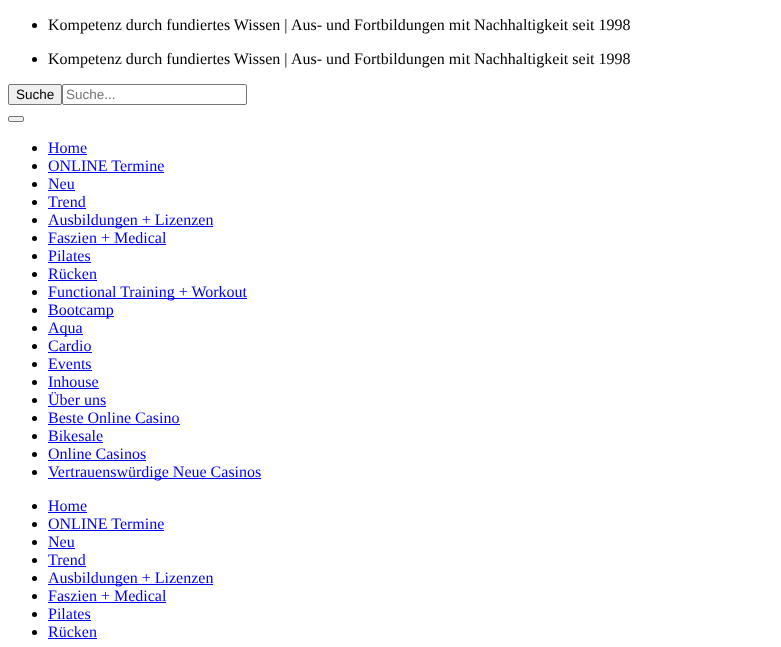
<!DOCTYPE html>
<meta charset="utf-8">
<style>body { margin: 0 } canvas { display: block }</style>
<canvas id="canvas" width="781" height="647"></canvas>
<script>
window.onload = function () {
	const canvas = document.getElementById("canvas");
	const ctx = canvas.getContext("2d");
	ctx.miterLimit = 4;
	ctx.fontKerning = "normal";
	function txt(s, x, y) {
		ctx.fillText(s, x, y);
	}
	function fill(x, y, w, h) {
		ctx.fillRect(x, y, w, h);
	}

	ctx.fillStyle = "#FFFFFF";
	fill(0, 0, 781, 647);
	ctx.fillStyle = "#000000";
	ctx.beginPath();
	ctx.arc(34.5, 25.5, 2.5, 0, Math.PI * 2);
	ctx.fill();
	ctx.beginPath();
	ctx.arc(34.5, 59.5, 2.5, 0, Math.PI * 2);
	ctx.fill();
	ctx.fillStyle = "#EFEFEF";
	ctx.beginPath();
	ctx.roundRect(8.5, 84.5, 53, 20, 1.5);
	ctx.fill();
	ctx.strokeStyle = "#767676";
	ctx.stroke();
	ctx.beginPath();
	ctx.roundRect(62.5, 84.5, 184, 20, 1.5);
	ctx.stroke();
	ctx.beginPath();
	ctx.roundRect(8.5, 116.5, 15, 5, 1.5);
	ctx.fill();
	ctx.stroke();
	ctx.fillStyle = "#000000";
	ctx.beginPath();
	ctx.arc(34.5, 148.5, 2.5, 0, Math.PI * 2);
	ctx.fill();
	ctx.fillStyle = "#0000EE";
	fill(48, 154, 39, 1);
	ctx.fillStyle = "#000000";
	ctx.beginPath();
	ctx.arc(34.5, 166.5, 2.5, 0, Math.PI * 2);
	ctx.fill();
	ctx.fillStyle = "#0000EE";
	fill(48, 172, 116, 1);
	ctx.fillStyle = "#000000";
	ctx.beginPath();
	ctx.arc(34.5, 184.5, 2.5, 0, Math.PI * 2);
	ctx.fill();
	ctx.fillStyle = "#0000EE";
	fill(48, 190, 27, 1);
	ctx.fillStyle = "#000000";
	ctx.beginPath();
	ctx.arc(34.5, 202.5, 2.5, 0, Math.PI * 2);
	ctx.fill();
	ctx.fillStyle = "#0000EE";
	fill(48, 208, 38, 1);
	ctx.fillStyle = "#000000";
	ctx.beginPath();
	ctx.arc(34.5, 220.5, 2.5, 0, Math.PI * 2);
	ctx.fill();
	ctx.fillStyle = "#0000EE";
	fill(48, 226, 165, 1);
	ctx.fillStyle = "#000000";
	ctx.beginPath();
	ctx.arc(34.5, 238.5, 2.5, 0, Math.PI * 2);
	ctx.fill();
	ctx.fillStyle = "#0000EE";
	fill(48, 244, 118, 1);
	ctx.fillStyle = "#000000";
	ctx.beginPath();
	ctx.arc(34.5, 256.5, 2.5, 0, Math.PI * 2);
	ctx.fill();
	ctx.fillStyle = "#0000EE";
	fill(48, 262, 43, 1);
	ctx.fillStyle = "#000000";
	ctx.beginPath();
	ctx.arc(34.5, 274.5, 2.5, 0, Math.PI * 2);
	ctx.fill();
	ctx.fillStyle = "#0000EE";
	fill(48, 280, 49, 1);
	ctx.fillStyle = "#000000";
	ctx.beginPath();
	ctx.arc(34.5, 292.5, 2.5, 0, Math.PI * 2);
	ctx.fill();
	ctx.fillStyle = "#0000EE";
	fill(48, 298, 199, 1);
	ctx.fillStyle = "#000000";
	ctx.beginPath();
	ctx.arc(34.5, 310.5, 2.5, 0, Math.PI * 2);
	ctx.fill();
	ctx.fillStyle = "#0000EE";
	fill(48, 316, 66, 1);
	ctx.fillStyle = "#000000";
	ctx.beginPath();
	ctx.arc(34.5, 328.5, 2.5, 0, Math.PI * 2);
	ctx.fill();
	ctx.fillStyle = "#0000EE";
	fill(48, 334, 35, 1);
	ctx.fillStyle = "#000000";
	ctx.beginPath();
	ctx.arc(34.5, 346.5, 2.5, 0, Math.PI * 2);
	ctx.fill();
	ctx.fillStyle = "#0000EE";
	fill(48, 352, 44, 1);
	ctx.fillStyle = "#000000";
	ctx.beginPath();
	ctx.arc(34.5, 364.5, 2.5, 0, Math.PI * 2);
	ctx.fill();
	ctx.fillStyle = "#0000EE";
	fill(48, 370, 44, 1);
	ctx.fillStyle = "#000000";
	ctx.beginPath();
	ctx.arc(34.5, 382.5, 2.5, 0, Math.PI * 2);
	ctx.fill();
	ctx.fillStyle = "#0000EE";
	fill(48, 388, 51, 1);
	ctx.fillStyle = "#000000";
	ctx.beginPath();
	ctx.arc(34.5, 400.5, 2.5, 0, Math.PI * 2);
	ctx.fill();
	ctx.fillStyle = "#0000EE";
	fill(48, 406, 58, 1);
	ctx.fillStyle = "#000000";
	ctx.beginPath();
	ctx.arc(34.5, 418.5, 2.5, 0, Math.PI * 2);
	ctx.fill();
	ctx.fillStyle = "#0000EE";
	fill(48, 424, 132, 1);
	ctx.fillStyle = "#000000";
	ctx.beginPath();
	ctx.arc(34.5, 436.5, 2.5, 0, Math.PI * 2);
	ctx.fill();
	ctx.fillStyle = "#0000EE";
	fill(48, 442, 55, 1);
	ctx.fillStyle = "#000000";
	ctx.beginPath();
	ctx.arc(34.5, 454.5, 2.5, 0, Math.PI * 2);
	ctx.fill();
	ctx.fillStyle = "#0000EE";
	fill(48, 460, 98, 1);
	ctx.fillStyle = "#000000";
	ctx.beginPath();
	ctx.arc(34.5, 472.5, 2.5, 0, Math.PI * 2);
	ctx.fill();
	ctx.fillStyle = "#0000EE";
	fill(48, 478, 213, 1);
	ctx.fillStyle = "#000000";
	ctx.beginPath();
	ctx.arc(34.5, 506.5, 2.5, 0, Math.PI * 2);
	ctx.fill();
	ctx.fillStyle = "#0000EE";
	fill(48, 512, 39, 1);
	ctx.fillStyle = "#000000";
	ctx.beginPath();
	ctx.arc(34.5, 524.5, 2.5, 0, Math.PI * 2);
	ctx.fill();
	ctx.fillStyle = "#0000EE";
	fill(48, 530, 116, 1);
	ctx.fillStyle = "#000000";
	ctx.beginPath();
	ctx.arc(34.5, 542.5, 2.5, 0, Math.PI * 2);
	ctx.fill();
	ctx.fillStyle = "#0000EE";
	fill(48, 548, 27, 1);
	ctx.fillStyle = "#000000";
	ctx.beginPath();
	ctx.arc(34.5, 560.5, 2.5, 0, Math.PI * 2);
	ctx.fill();
	ctx.fillStyle = "#0000EE";
	fill(48, 566, 38, 1);
	ctx.fillStyle = "#000000";
	ctx.beginPath();
	ctx.arc(34.5, 578.5, 2.5, 0, Math.PI * 2);
	ctx.fill();
	ctx.fillStyle = "#0000EE";
	fill(48, 584, 165, 1);
	ctx.fillStyle = "#000000";
	ctx.beginPath();
	ctx.arc(34.5, 596.5, 2.5, 0, Math.PI * 2);
	ctx.fill();
	ctx.fillStyle = "#0000EE";
	fill(48, 602, 118, 1);
	ctx.fillStyle = "#000000";
	ctx.beginPath();
	ctx.arc(34.5, 614.5, 2.5, 0, Math.PI * 2);
	ctx.fill();
	ctx.fillStyle = "#0000EE";
	fill(48, 620, 43, 1);
	ctx.fillStyle = "#000000";
	ctx.beginPath();
	ctx.arc(34.5, 632.5, 2.5, 0, Math.PI * 2);
	ctx.fill();
	ctx.fillStyle = "#0000EE";
	fill(48, 638, 49, 1);
	ctx.font = "16px Liberation Serif";
	ctx.fillStyle = "#000000";
	txt("Kompetenz durch fundiertes Wissen |", 48, 30);
	txt("Aus- und Fortbildungen mit Nachhaltigkeit seit 1998", 291, 30);
	txt("Kompetenz durch fundiertes Wissen |", 48, 64);
	txt("Aus- und Fortbildungen mit Nachhaltigkeit seit 1998", 291, 64);
	ctx.font = "13.5px Liberation Sans";
	txt("Suche", 16, 99);
	ctx.fillStyle = "#757575";
	txt("Suche...", 66, 99);
	ctx.font = "16px Liberation Serif";
	ctx.fillStyle = "#0000EE";
	txt("Home", 48, 153);
	txt("ONLINE Termine", 48, 171);
	txt("Neu", 48, 189);
	txt("Trend", 48, 207);
	txt("Ausbildungen + Lizenzen", 48, 225);
	txt("Faszien + Medical", 48, 243);
	txt("Pilates", 48, 261);
	txt("Rücken", 48, 279);
	txt("Functional Training + Workout", 48, 297);
	txt("Bootcamp", 48, 315);
	txt("Aqua", 48, 333);
	txt("Cardio", 48, 351);
	txt("Events", 48, 369);
	txt("Inhouse", 48, 387);
	txt("Über uns", 48, 405);
	txt("Beste Online Casino", 48, 423);
	txt("Bikesale", 48, 441);
	txt("Online Casinos", 48, 459);
	txt("Vertrauenswürdige Neue Casinos", 48, 477);
	txt("Home", 48, 511);
	txt("ONLINE Termine", 48, 529);
	txt("Neu", 48, 547);
	txt("Trend", 48, 565);
	txt("Ausbildungen + Lizenzen", 48, 583);
	txt("Faszien + Medical", 48, 601);
	txt("Pilates", 48, 619);
	txt("Rücken", 48, 637);
};
</script>
